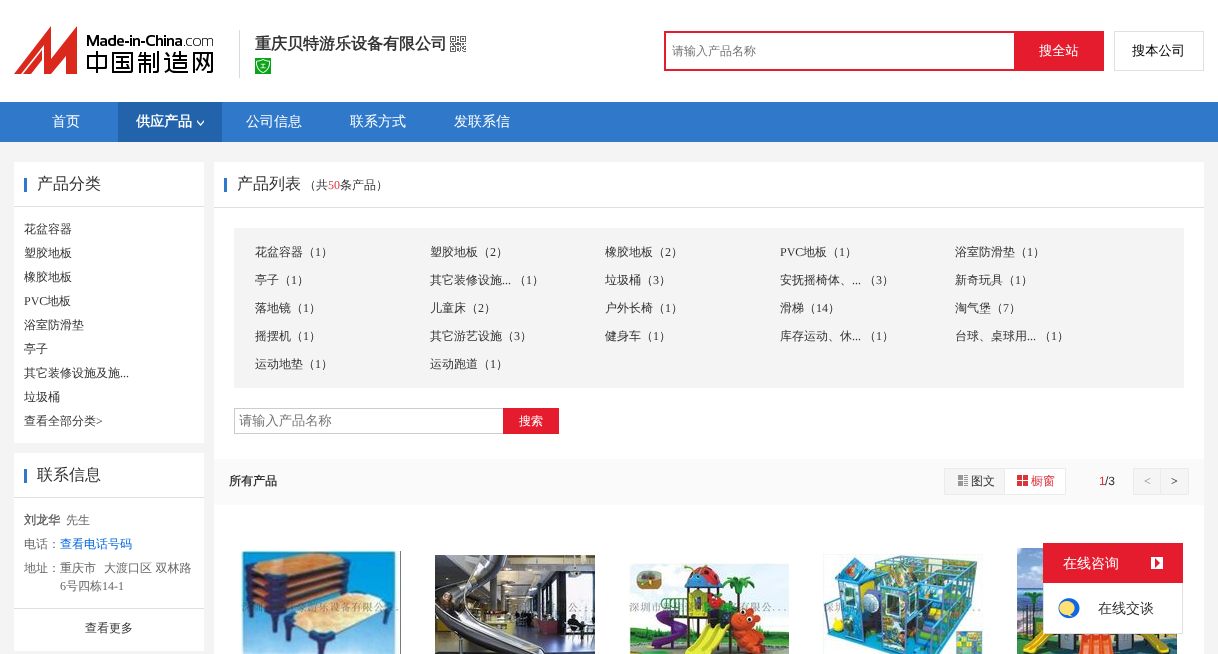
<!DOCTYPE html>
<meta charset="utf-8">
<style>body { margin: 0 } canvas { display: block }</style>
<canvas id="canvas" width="1218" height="654"></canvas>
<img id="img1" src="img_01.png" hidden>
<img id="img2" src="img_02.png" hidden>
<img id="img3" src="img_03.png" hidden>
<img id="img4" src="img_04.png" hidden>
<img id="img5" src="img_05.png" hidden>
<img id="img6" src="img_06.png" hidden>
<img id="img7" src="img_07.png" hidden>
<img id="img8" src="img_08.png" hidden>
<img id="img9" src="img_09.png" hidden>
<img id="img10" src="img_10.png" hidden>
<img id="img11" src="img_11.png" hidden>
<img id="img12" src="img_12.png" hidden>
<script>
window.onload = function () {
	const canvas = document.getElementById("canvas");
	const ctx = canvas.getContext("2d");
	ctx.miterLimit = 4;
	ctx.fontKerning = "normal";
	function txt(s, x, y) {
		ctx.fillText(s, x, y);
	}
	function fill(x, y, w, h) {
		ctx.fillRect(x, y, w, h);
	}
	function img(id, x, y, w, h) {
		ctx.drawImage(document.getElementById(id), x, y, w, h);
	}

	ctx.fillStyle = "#F4F4F4";
	fill(0, 0, 1218, 654);
	ctx.fillStyle = "#FFFFFF";
	fill(0, 0, 1218, 102);
	img("img1", 14, 26, 199, 48);
	ctx.fillStyle = "#D9D9D9";
	fill(239, 30, 1, 48);
	img("img2", 450, 36, 16, 16);
	img("img3", 255, 58, 16, 16);
	ctx.fillStyle = "#E41C2E";
	fill(664, 31, 350, 2);
	fill(664, 69, 350, 2);
	fill(664, 31, 2, 40);
	fill(1014, 31, 90, 40);
	ctx.strokeStyle = "#E0E0E0";
	ctx.strokeRect(1114.5, 31.5, 89, 39);
	ctx.fillStyle = "#2F78CA";
	fill(0, 102, 1218, 40);
	ctx.fillStyle = "#2263AC";
	fill(118, 102, 104, 40);
	img("img4", 197, 120, 7, 6);
	ctx.fillStyle = "#FFFFFF";
	fill(14, 162, 190, 281);
	ctx.fillStyle = "#E0E0E0";
	fill(14, 206, 190, 1);
	ctx.fillStyle = "#2F78CA";
	fill(24, 178, 3, 14);
	ctx.fillStyle = "#FFFFFF";
	fill(14, 453, 190, 198);
	ctx.fillStyle = "#E0E0E0";
	fill(14, 497, 190, 1);
	ctx.fillStyle = "#2F78CA";
	fill(24, 469, 3, 14);
	ctx.fillStyle = "#E0E0E0";
	fill(14, 608, 190, 1);
	ctx.fillStyle = "#FFFFFF";
	fill(214, 162, 990, 492);
	ctx.fillStyle = "#E0E0E0";
	fill(214, 207, 990, 1);
	ctx.fillStyle = "#2F78CA";
	fill(224, 178, 3, 14);
	ctx.fillStyle = "#F4F4F4";
	fill(234, 228, 950, 160);
	ctx.fillStyle = "#CCCCCC";
	fill(234, 408, 269, 1);
	fill(234, 433, 269, 1);
	fill(234, 408, 1, 26);
	ctx.fillStyle = "#E41C2E";
	fill(503, 408, 56, 26);
	ctx.fillStyle = "#FAFAFA";
	fill(214, 459, 990, 46);
	ctx.fillStyle = "#F5F5F5";
	fill(945, 469, 59, 25);
	ctx.strokeStyle = "#EBEBEB";
	ctx.strokeRect(944.5, 468.5, 61, 26);
	img("img5", 958, 475, 10, 11);
	ctx.fillStyle = "#FFFFFF";
	ctx.beginPath();
	ctx.rect(1004.5, 468.5, 61, 26);
	ctx.fill();
	ctx.stroke();
	img("img6", 1017, 475, 11, 11);
	ctx.fillStyle = "#F5F5F5";
	fill(1134, 469, 26, 25);
	ctx.strokeRect(1133.5, 468.5, 28, 26);
	ctx.beginPath();
	ctx.rect(1160.5, 468.5, 28, 26);
	ctx.fill();
	ctx.stroke();
	img("img7", 241, 551, 160, 103);
	img("img8", 435, 555, 160, 99);
	img("img9", 629, 563, 160, 91);
	img("img10", 823, 554, 160, 100);
	img("img11", 1017, 548, 160, 106);
	ctx.fillStyle = "#E41C2E";
	fill(1043, 543, 140, 40);
	ctx.fillStyle = "#FFFFFF";
	fill(1151, 557, 12, 12);
	ctx.fillStyle = "#E41C2E";
	ctx.beginPath();
	ctx.moveTo(1155, 568);
	ctx.lineTo(1155, 558);
	ctx.lineTo(1160, 563);
	ctx.closePath();
	ctx.fill();
	ctx.fillStyle = "#FFFFFF";
	fill(1044, 583, 133, 50);
	ctx.fillStyle = "#E0E0E0";
	fill(1182, 583, 1, 51);
	fill(1043, 633, 140, 1);
	fill(1043, 583, 1, 51);
	img("img12", 1058, 598, 22, 21);
	ctx.font = "bold 16px WenQuanYi Zen Hei";
	ctx.fillStyle = "#333333";
	txt("重庆贝特游乐设备有限公司", 255, 49);
	ctx.font = "500 12px WenQuanYi Zen Hei";
	ctx.fillStyle = "#757575";
	txt("请输入产品名称", 672, 55);
	ctx.font = "500 13.25px WenQuanYi Zen Hei";
	ctx.fillStyle = "#FFFFFF";
	txt("搜全站", 1039, 55);
	ctx.fillStyle = "#000000";
	txt("搜本公司", 1132, 55);
	ctx.font = "500 14px WenQuanYi Zen Hei";
	ctx.fillStyle = "#FFFFFF";
	txt("首页", 52, 126);
	ctx.font = "bold 14px WenQuanYi Zen Hei";
	txt("供应产品", 136, 126);
	ctx.font = "500 14px WenQuanYi Zen Hei";
	txt("公司信息", 246, 126);
	txt("联系方式", 350, 126);
	txt("发联系信", 454, 126);
	ctx.font = "500 16px WenQuanYi Zen Hei";
	ctx.fillStyle = "#333333";
	txt("产品分类", 37, 189);
	ctx.font = "500 12px WenQuanYi Zen Hei";
	txt("花盆容器", 24, 233);
	txt("塑胶地板", 24, 257);
	txt("橡胶地板", 24, 281);
	ctx.font = "12px Liberation Serif";
	txt("PVC", 24, 305);
	ctx.font = "500 12px WenQuanYi Zen Hei";
	txt("地板", 47, 305);
	txt("浴室防滑垫", 24, 329);
	txt("亭子", 24, 353);
	txt("其它装修设施及施", 24, 377);
	ctx.font = "12px Liberation Serif";
	txt("...", 120, 377);
	ctx.font = "500 12px WenQuanYi Zen Hei";
	txt("垃圾桶", 24, 401);
	txt("查看全部分类", 24, 425);
	ctx.font = "12px Liberation Serif";
	txt(">", 96, 425);
	ctx.font = "500 16px WenQuanYi Zen Hei";
	txt("联系信息", 37, 480);
	ctx.font = "bold 12px WenQuanYi Zen Hei";
	ctx.fillStyle = "#666666";
	txt("刘龙华", 24, 524);
	ctx.font = "500 12px WenQuanYi Zen Hei";
	txt("先生", 66, 524);
	txt("电话：", 24, 548);
	ctx.fillStyle = "#0066DD";
	txt("查看电话号码", 60, 548);
	ctx.fillStyle = "#666666";
	txt("地址：重庆市", 24, 572);
	txt("大渡口区 双林路", 104, 572);
	ctx.font = "12px Liberation Serif";
	txt("6", 60, 590);
	ctx.font = "500 12px WenQuanYi Zen Hei";
	txt("号四栋", 66, 590);
	ctx.font = "12px Liberation Serif";
	txt("14-1", 102, 590);
	ctx.font = "500 12px WenQuanYi Zen Hei";
	ctx.fillStyle = "#333333";
	txt("查看更多", 85, 632);
	ctx.font = "500 16px WenQuanYi Zen Hei";
	txt("产品列表", 237, 189);
	ctx.font = "500 12px WenQuanYi Zen Hei";
	txt("（共", 304, 189);
	ctx.font = "12px Liberation Serif";
	ctx.fillStyle = "#D9363C";
	txt("50", 328, 189);
	ctx.font = "500 12px WenQuanYi Zen Hei";
	ctx.fillStyle = "#333333";
	txt("条产品）", 340, 189);
	txt("花盆容器（", 255, 256);
	ctx.font = "12px Liberation Serif";
	txt("1", 315, 256);
	ctx.font = "500 12px WenQuanYi Zen Hei";
	txt("）", 321, 256);
	txt("塑胶地板（", 430, 256);
	ctx.font = "12px Liberation Serif";
	txt("2", 490, 256);
	ctx.font = "500 12px WenQuanYi Zen Hei";
	txt("）", 496, 256);
	txt("橡胶地板（", 605, 256);
	ctx.font = "12px Liberation Serif";
	txt("2", 665, 256);
	ctx.font = "500 12px WenQuanYi Zen Hei";
	txt("）", 671, 256);
	ctx.font = "12px Liberation Serif";
	txt("PVC", 780, 256);
	ctx.font = "500 12px WenQuanYi Zen Hei";
	txt("地板（", 803, 256);
	ctx.font = "12px Liberation Serif";
	txt("1", 839, 256);
	ctx.font = "500 12px WenQuanYi Zen Hei";
	txt("）", 845, 256);
	txt("浴室防滑垫（", 955, 256);
	ctx.font = "12px Liberation Serif";
	txt("1", 1027, 256);
	ctx.font = "500 12px WenQuanYi Zen Hei";
	txt("）", 1033, 256);
	txt("亭子（", 255, 284);
	ctx.font = "12px Liberation Serif";
	txt("1", 291, 284);
	ctx.font = "500 12px WenQuanYi Zen Hei";
	txt("）", 297, 284);
	txt("其它装修设施", 430, 284);
	ctx.font = "12px Liberation Serif";
	txt("...", 502, 284);
	ctx.font = "500 12px WenQuanYi Zen Hei";
	txt("（", 514, 284);
	ctx.font = "12px Liberation Serif";
	txt("1", 526, 284);
	ctx.font = "500 12px WenQuanYi Zen Hei";
	txt("）", 532, 284);
	txt("垃圾桶（", 605, 284);
	ctx.font = "12px Liberation Serif";
	txt("3", 653, 284);
	ctx.font = "500 12px WenQuanYi Zen Hei";
	txt("）", 659, 284);
	txt("安抚摇椅体、", 780, 284);
	ctx.font = "12px Liberation Serif";
	txt("...", 852, 284);
	ctx.font = "500 12px WenQuanYi Zen Hei";
	txt("（", 864, 284);
	ctx.font = "12px Liberation Serif";
	txt("3", 876, 284);
	ctx.font = "500 12px WenQuanYi Zen Hei";
	txt("）", 882, 284);
	txt("新奇玩具（", 955, 284);
	ctx.font = "12px Liberation Serif";
	txt("1", 1015, 284);
	ctx.font = "500 12px WenQuanYi Zen Hei";
	txt("）", 1021, 284);
	txt("落地镜（", 255, 312);
	ctx.font = "12px Liberation Serif";
	txt("1", 303, 312);
	ctx.font = "500 12px WenQuanYi Zen Hei";
	txt("）", 309, 312);
	txt("儿童床（", 430, 312);
	ctx.font = "12px Liberation Serif";
	txt("2", 478, 312);
	ctx.font = "500 12px WenQuanYi Zen Hei";
	txt("）", 484, 312);
	txt("户外长椅（", 605, 312);
	ctx.font = "12px Liberation Serif";
	txt("1", 665, 312);
	ctx.font = "500 12px WenQuanYi Zen Hei";
	txt("）", 671, 312);
	txt("滑梯（", 780, 312);
	ctx.font = "12px Liberation Serif";
	txt("14", 816, 312);
	ctx.font = "500 12px WenQuanYi Zen Hei";
	txt("）", 828, 312);
	txt("淘气堡（", 955, 312);
	ctx.font = "12px Liberation Serif";
	txt("7", 1003, 312);
	ctx.font = "500 12px WenQuanYi Zen Hei";
	txt("）", 1009, 312);
	txt("摇摆机（", 255, 340);
	ctx.font = "12px Liberation Serif";
	txt("1", 303, 340);
	ctx.font = "500 12px WenQuanYi Zen Hei";
	txt("）", 309, 340);
	txt("其它游艺设施（", 430, 340);
	ctx.font = "12px Liberation Serif";
	txt("3", 514, 340);
	ctx.font = "500 12px WenQuanYi Zen Hei";
	txt("）", 520, 340);
	txt("健身车（", 605, 340);
	ctx.font = "12px Liberation Serif";
	txt("1", 653, 340);
	ctx.font = "500 12px WenQuanYi Zen Hei";
	txt("）", 659, 340);
	txt("库存运动、休", 780, 340);
	ctx.font = "12px Liberation Serif";
	txt("...", 852, 340);
	ctx.font = "500 12px WenQuanYi Zen Hei";
	txt("（", 864, 340);
	ctx.font = "12px Liberation Serif";
	txt("1", 876, 340);
	ctx.font = "500 12px WenQuanYi Zen Hei";
	txt("）", 882, 340);
	txt("台球、桌球用", 955, 340);
	ctx.font = "12px Liberation Serif";
	txt("...", 1027, 340);
	ctx.font = "500 12px WenQuanYi Zen Hei";
	txt("（", 1039, 340);
	ctx.font = "12px Liberation Serif";
	txt("1", 1051, 340);
	ctx.font = "500 12px WenQuanYi Zen Hei";
	txt("）", 1057, 340);
	txt("运动地垫（", 255, 368);
	ctx.font = "12px Liberation Serif";
	txt("1", 315, 368);
	ctx.font = "500 12px WenQuanYi Zen Hei";
	txt("）", 321, 368);
	txt("运动跑道（", 430, 368);
	ctx.font = "12px Liberation Serif";
	txt("1", 490, 368);
	ctx.font = "500 12px WenQuanYi Zen Hei";
	txt("）", 496, 368);
	ctx.font = "500 13.25px WenQuanYi Zen Hei";
	ctx.fillStyle = "#757575";
	txt("请输入产品名称", 239, 425);
	ctx.font = "500 12px WenQuanYi Zen Hei";
	ctx.fillStyle = "#FFFFFF";
	txt("搜索", 519, 425);
	ctx.font = "bold 12px WenQuanYi Zen Hei";
	ctx.fillStyle = "#333333";
	txt("所有产品", 229, 485);
	ctx.font = "500 12px WenQuanYi Zen Hei";
	txt("图文", 971, 485);
	ctx.fillStyle = "#D9363C";
	txt("橱窗", 1031, 485);
	ctx.font = "12px Liberation Sans";
	txt("1", 1099, 485);
	ctx.fillStyle = "#333333";
	txt("/3", 1105, 485);
	ctx.font = "bold 12px Liberation Serif";
	ctx.fillStyle = "#999999";
	txt("<", 1144, 485);
	ctx.fillStyle = "#333333";
	txt(">", 1171, 485);
	ctx.font = "500 14px WenQuanYi Zen Hei";
	ctx.fillStyle = "#FFFFFF";
	txt("在线咨询", 1063, 568);
	ctx.fillStyle = "#333333";
	txt("在线交谈", 1098, 613);
};
</script>
